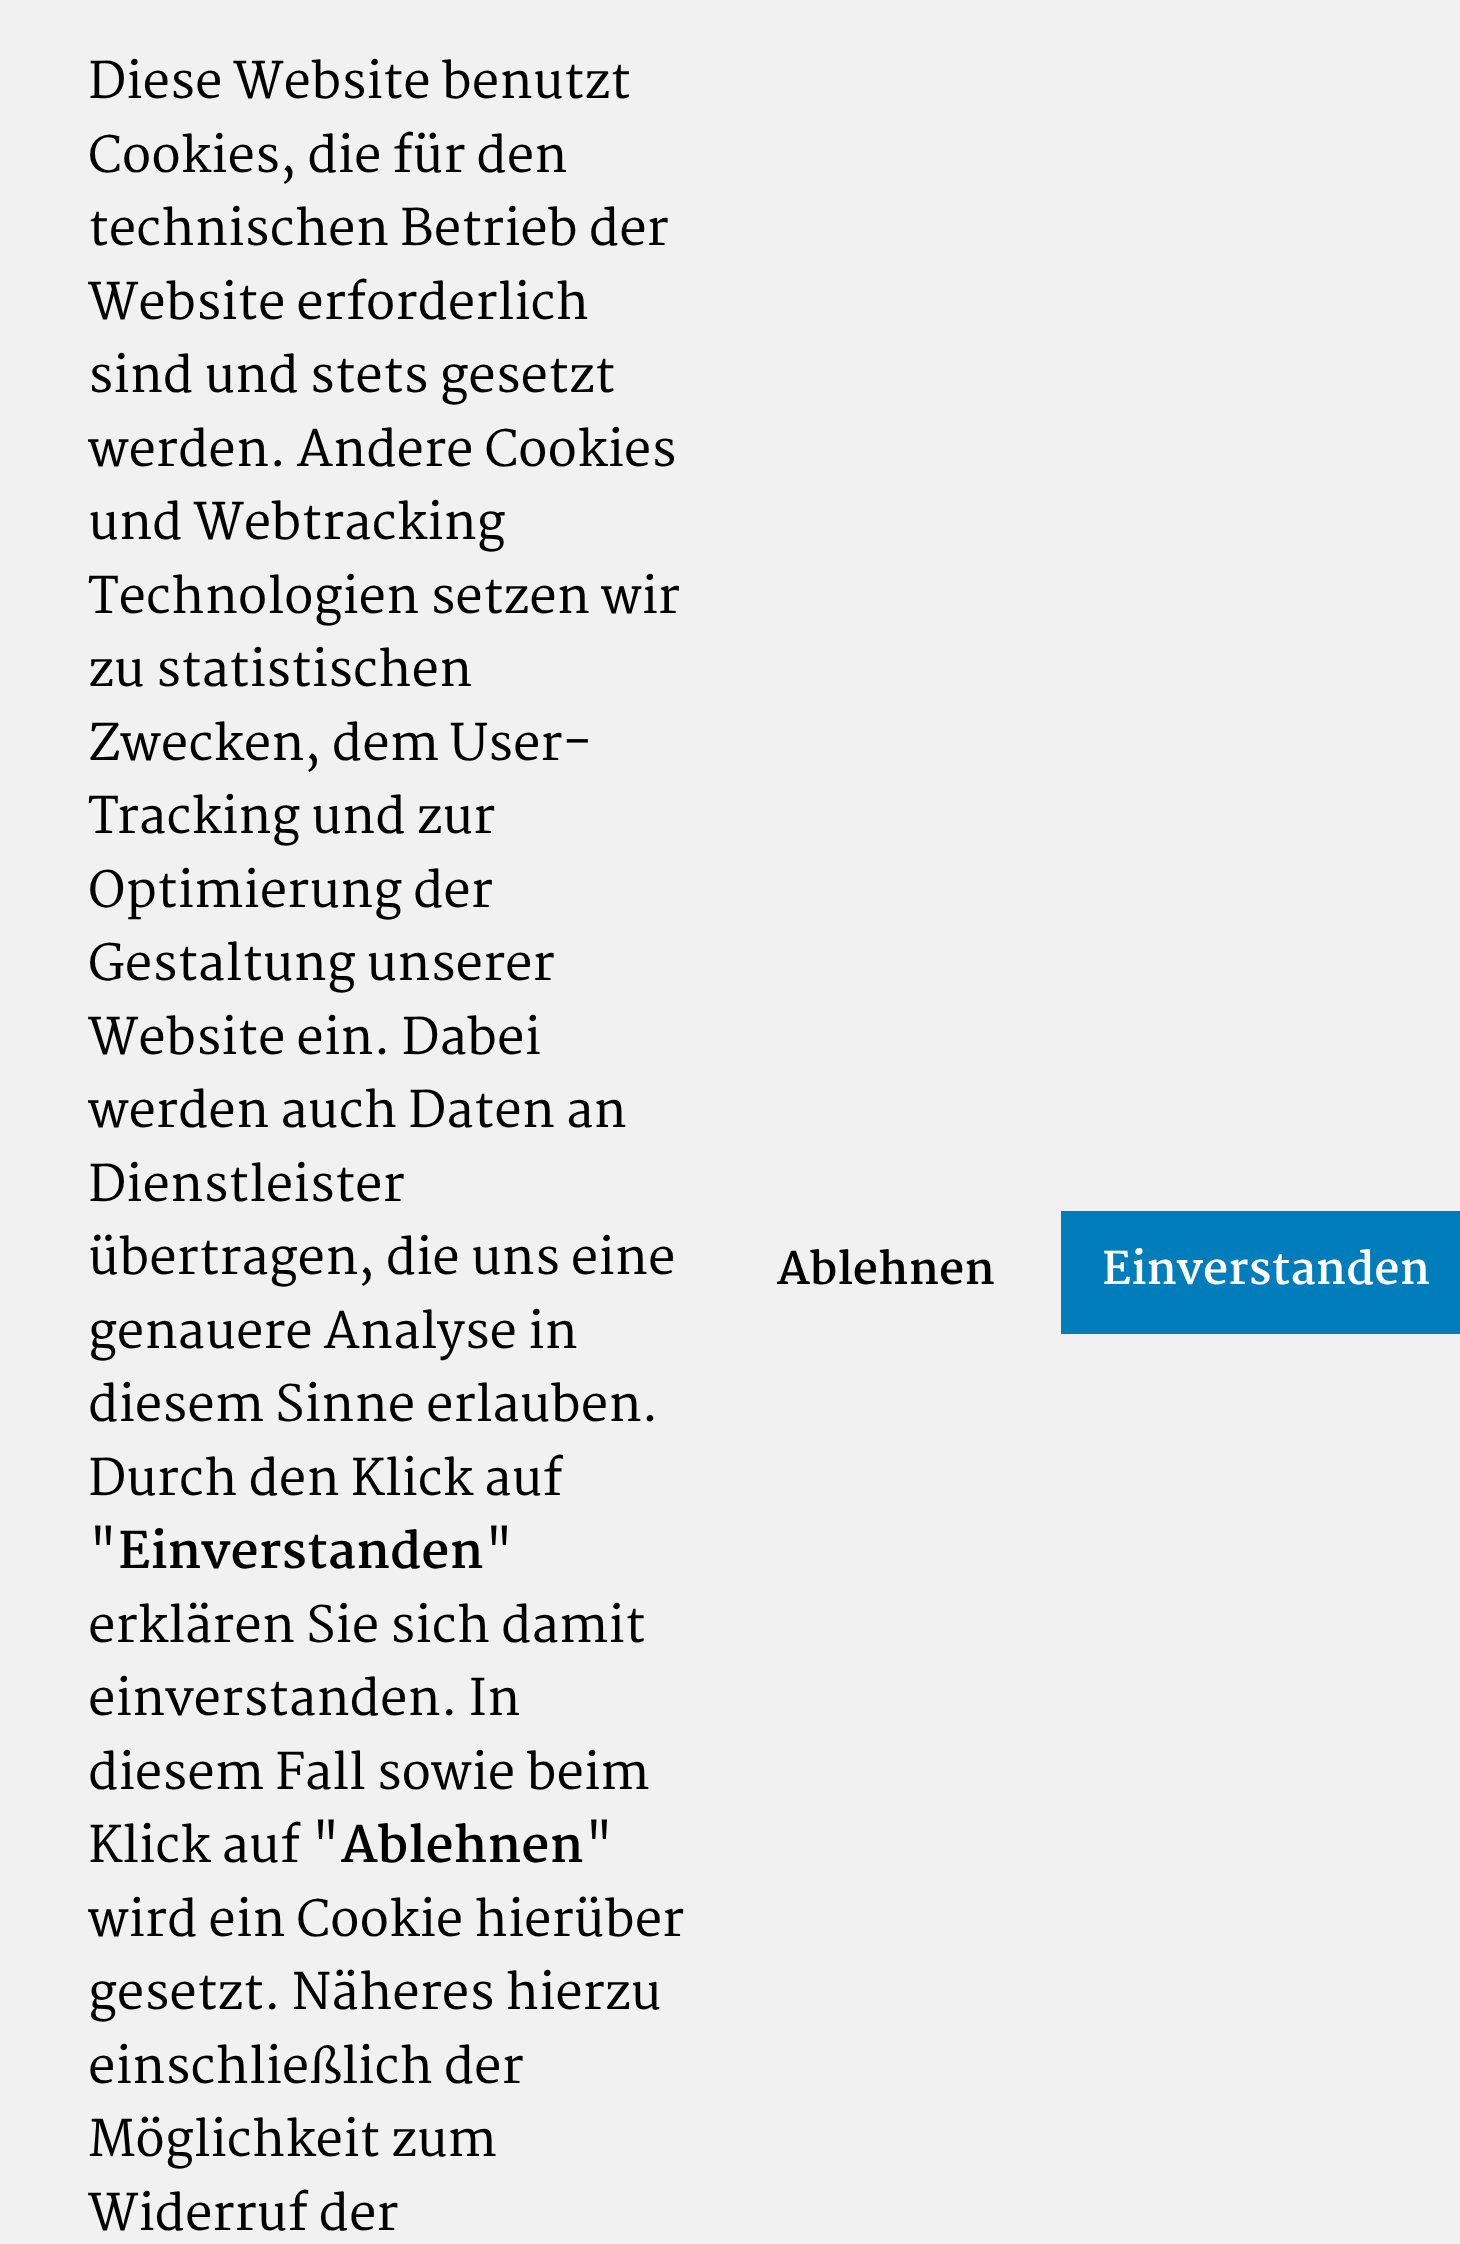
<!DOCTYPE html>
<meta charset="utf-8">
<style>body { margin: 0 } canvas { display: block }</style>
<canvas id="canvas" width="1460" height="2244"></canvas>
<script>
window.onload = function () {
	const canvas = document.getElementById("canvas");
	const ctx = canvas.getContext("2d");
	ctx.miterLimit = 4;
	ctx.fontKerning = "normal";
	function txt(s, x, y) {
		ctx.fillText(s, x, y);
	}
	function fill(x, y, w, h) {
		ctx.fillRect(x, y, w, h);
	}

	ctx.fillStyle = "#F1F1F1";
	fill(0, 0, 1460, 2244);
	ctx.fillStyle = "#007DBA";
	fill(1061, 1211, 399, 123);
	ctx.font = "600 49px Martel";
	ctx.fillStyle = "#000000";
	txt("Diese Website benutzt", 88, 98);
	txt("Cookies, die für den", 88, 172);
	txt("technischen Betrieb der", 88, 245);
	txt("Website erforderlich", 88, 319);
	txt("sind und stets gesetzt", 88, 392);
	txt("werden. Andere Cookies", 88, 466);
	txt("und Webtracking", 88, 539);
	txt("Technologien setzen wir", 88, 613);
	txt("zu statistischen", 88, 686);
	txt("Zwecken, dem User-", 88, 760);
	txt("Tracking und zur", 88, 833);
	txt("Optimierung der", 88, 907);
	txt("Gestaltung unserer", 88, 980);
	txt("Website ein. Dabei", 88, 1054);
	txt("werden auch Daten an", 88, 1127);
	txt("Dienstleister", 88, 1201);
	txt("übertragen, die uns eine", 88, 1274);
	txt("genauere Analyse in", 88, 1348);
	txt("diesem Sinne erlauben.", 88, 1421);
	txt("Durch den Klick auf", 88, 1495);
	txt("\"", 88, 1568);
	ctx.font = "bold 49px Martel";
	txt("Einverstanden", 118, 1568);
	ctx.font = "600 49px Martel";
	txt("\"", 484, 1568);
	txt("erklären Sie sich damit", 88, 1642);
	txt("einverstanden. In", 88, 1715);
	txt("diesem Fall sowie beim", 88, 1789);
	txt("Klick auf \"", 88, 1862);
	ctx.font = "bold 49px Martel";
	txt("Ablehnen", 341, 1862);
	ctx.font = "600 49px Martel";
	txt("\"", 584, 1862);
	txt("wird ein Cookie hierüber", 88, 1936);
	txt("gesetzt. Näheres hierzu", 88, 2009);
	txt("einschließlich der", 88, 2083);
	txt("Möglichkeit zum", 88, 2156);
	txt("Widerruf der", 88, 2230);
	ctx.font = "bold 44px Martel";
	txt("Ablehnen", 777, 1284);
	ctx.fillStyle = "#FFFFFF";
	txt("Einverstanden", 1102, 1284);
};
</script>
